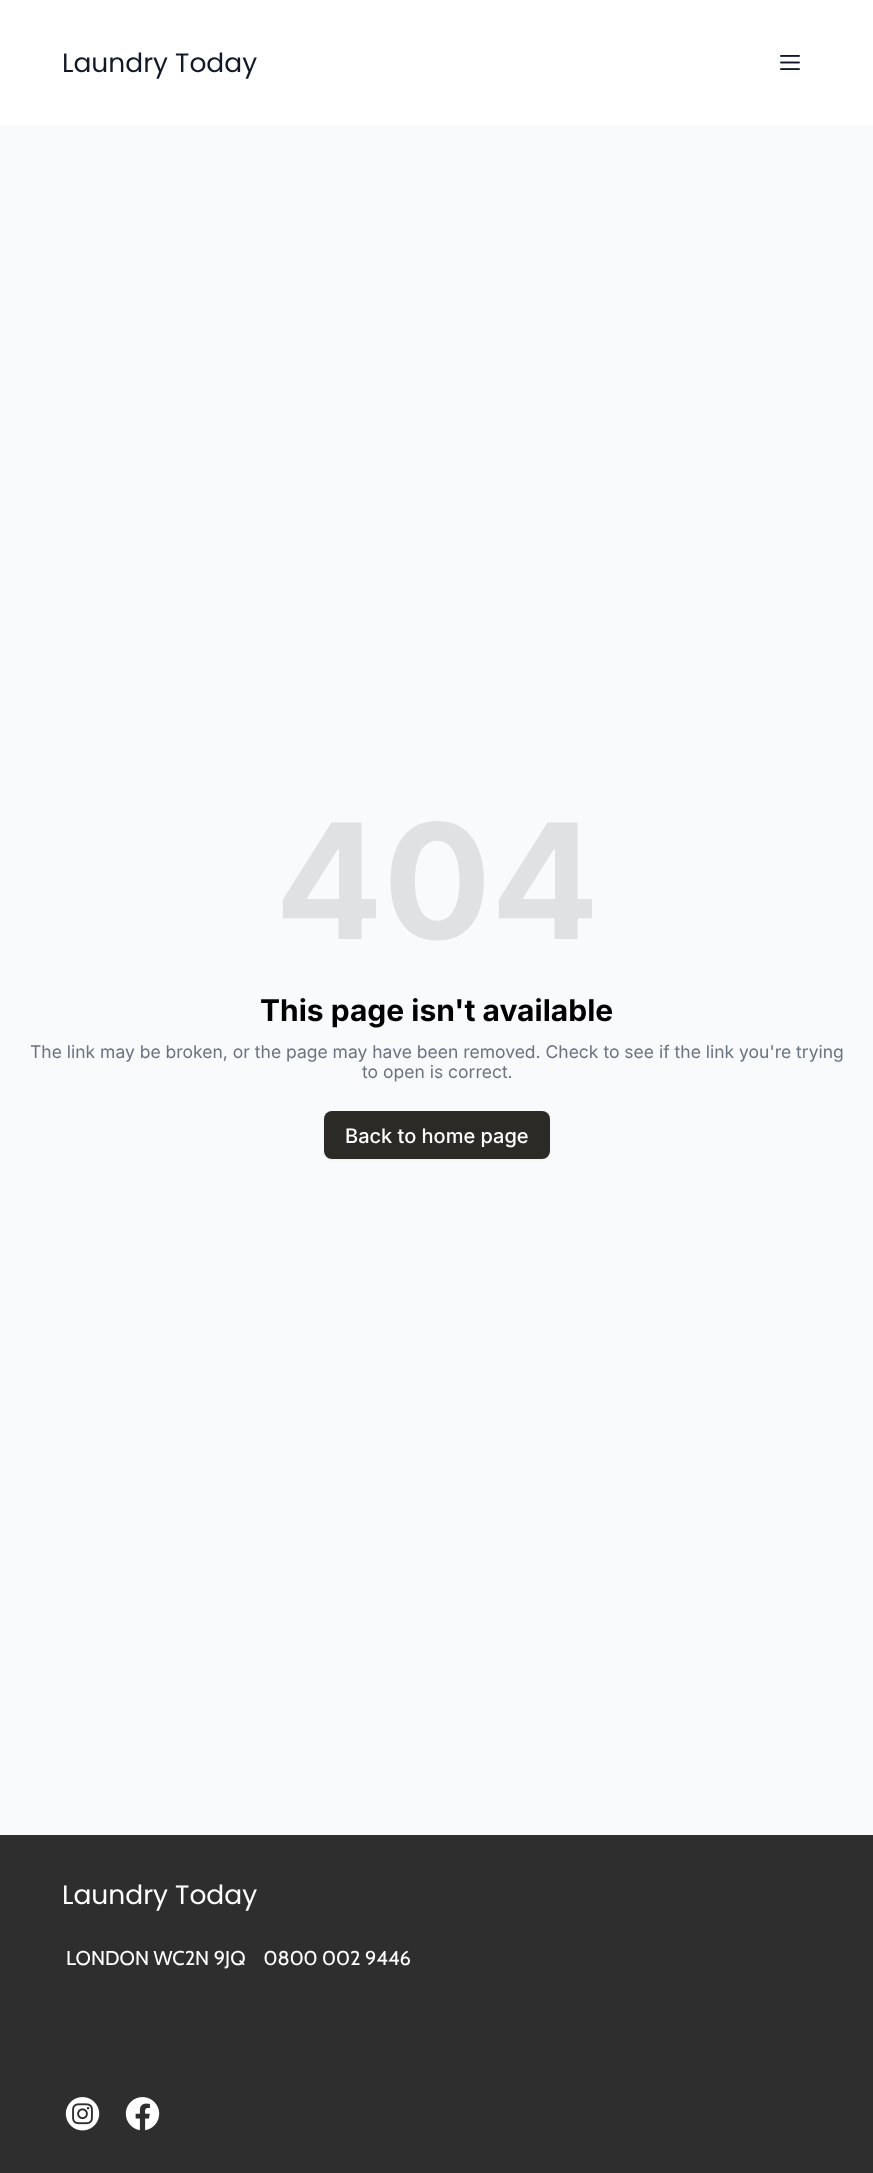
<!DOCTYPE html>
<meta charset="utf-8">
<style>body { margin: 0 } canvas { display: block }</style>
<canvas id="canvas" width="873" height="2173"></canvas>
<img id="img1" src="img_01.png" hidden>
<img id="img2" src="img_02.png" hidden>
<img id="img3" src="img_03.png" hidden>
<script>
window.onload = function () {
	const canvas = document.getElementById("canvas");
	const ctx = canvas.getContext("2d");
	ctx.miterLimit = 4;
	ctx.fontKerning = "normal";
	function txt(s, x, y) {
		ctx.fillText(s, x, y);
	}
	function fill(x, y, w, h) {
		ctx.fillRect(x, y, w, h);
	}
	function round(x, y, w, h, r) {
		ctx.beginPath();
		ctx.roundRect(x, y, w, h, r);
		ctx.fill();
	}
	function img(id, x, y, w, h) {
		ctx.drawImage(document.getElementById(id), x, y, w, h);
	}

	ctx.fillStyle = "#FFFFFF";
	fill(0, 0, 873, 2173);
	img("img1", 780, 55, 20, 15);
	ctx.fillStyle = "#F9FAFB";
	fill(0, 125, 873, 1710);
	ctx.fillStyle = "rgba(0, 0, 0, 0.05)";
	ctx.filter = "blur(1px)";
	ctx.beginPath();
	ctx.roundRect(324, 1113, 226, 47, 8);
	ctx.fill();
	ctx.filter = "none";
	ctx.fillStyle = "#2C2A26";
	round(324, 1111, 226, 48, 8);
	ctx.fillStyle = "#2E2E2E";
	fill(0, 1835, 873, 338);
	img("img2", 65, 2097, 35, 34);
	img("img3", 125, 2097, 35, 34);
	ctx.font = "26.5px Poppins";
	ctx.fillStyle = "#111827";
	txt("Laundry Today", 62, 72);
	ctx.font = "bold 160px Inter";
	ctx.fillStyle = "#E0E1E2";
	txt("404", 275, 939);
	ctx.font = "bold 30px Inter";
	ctx.fillStyle = "#000000";
	txt("This page isn't available", 260, 1021);
	ctx.font = "17.5px Inter";
	ctx.fillStyle = "#6B7280";
	txt("The link may be broken, or the page may have been removed. Check to see if the link you're trying", 30, 1058);
	txt("to open is correct.", 362, 1078);
	ctx.font = "500 20px Inter";
	ctx.fillStyle = "#FFFFFF";
	txt("Back to home page", 345, 1143);
	ctx.font = "26.5px Poppins";
	txt("Laundry Today", 62, 1904);
	ctx.font = "20px Cabin";
	txt("LONDON WC2N 9JQ    0800 002 9446", 66, 1965);
};
</script>
